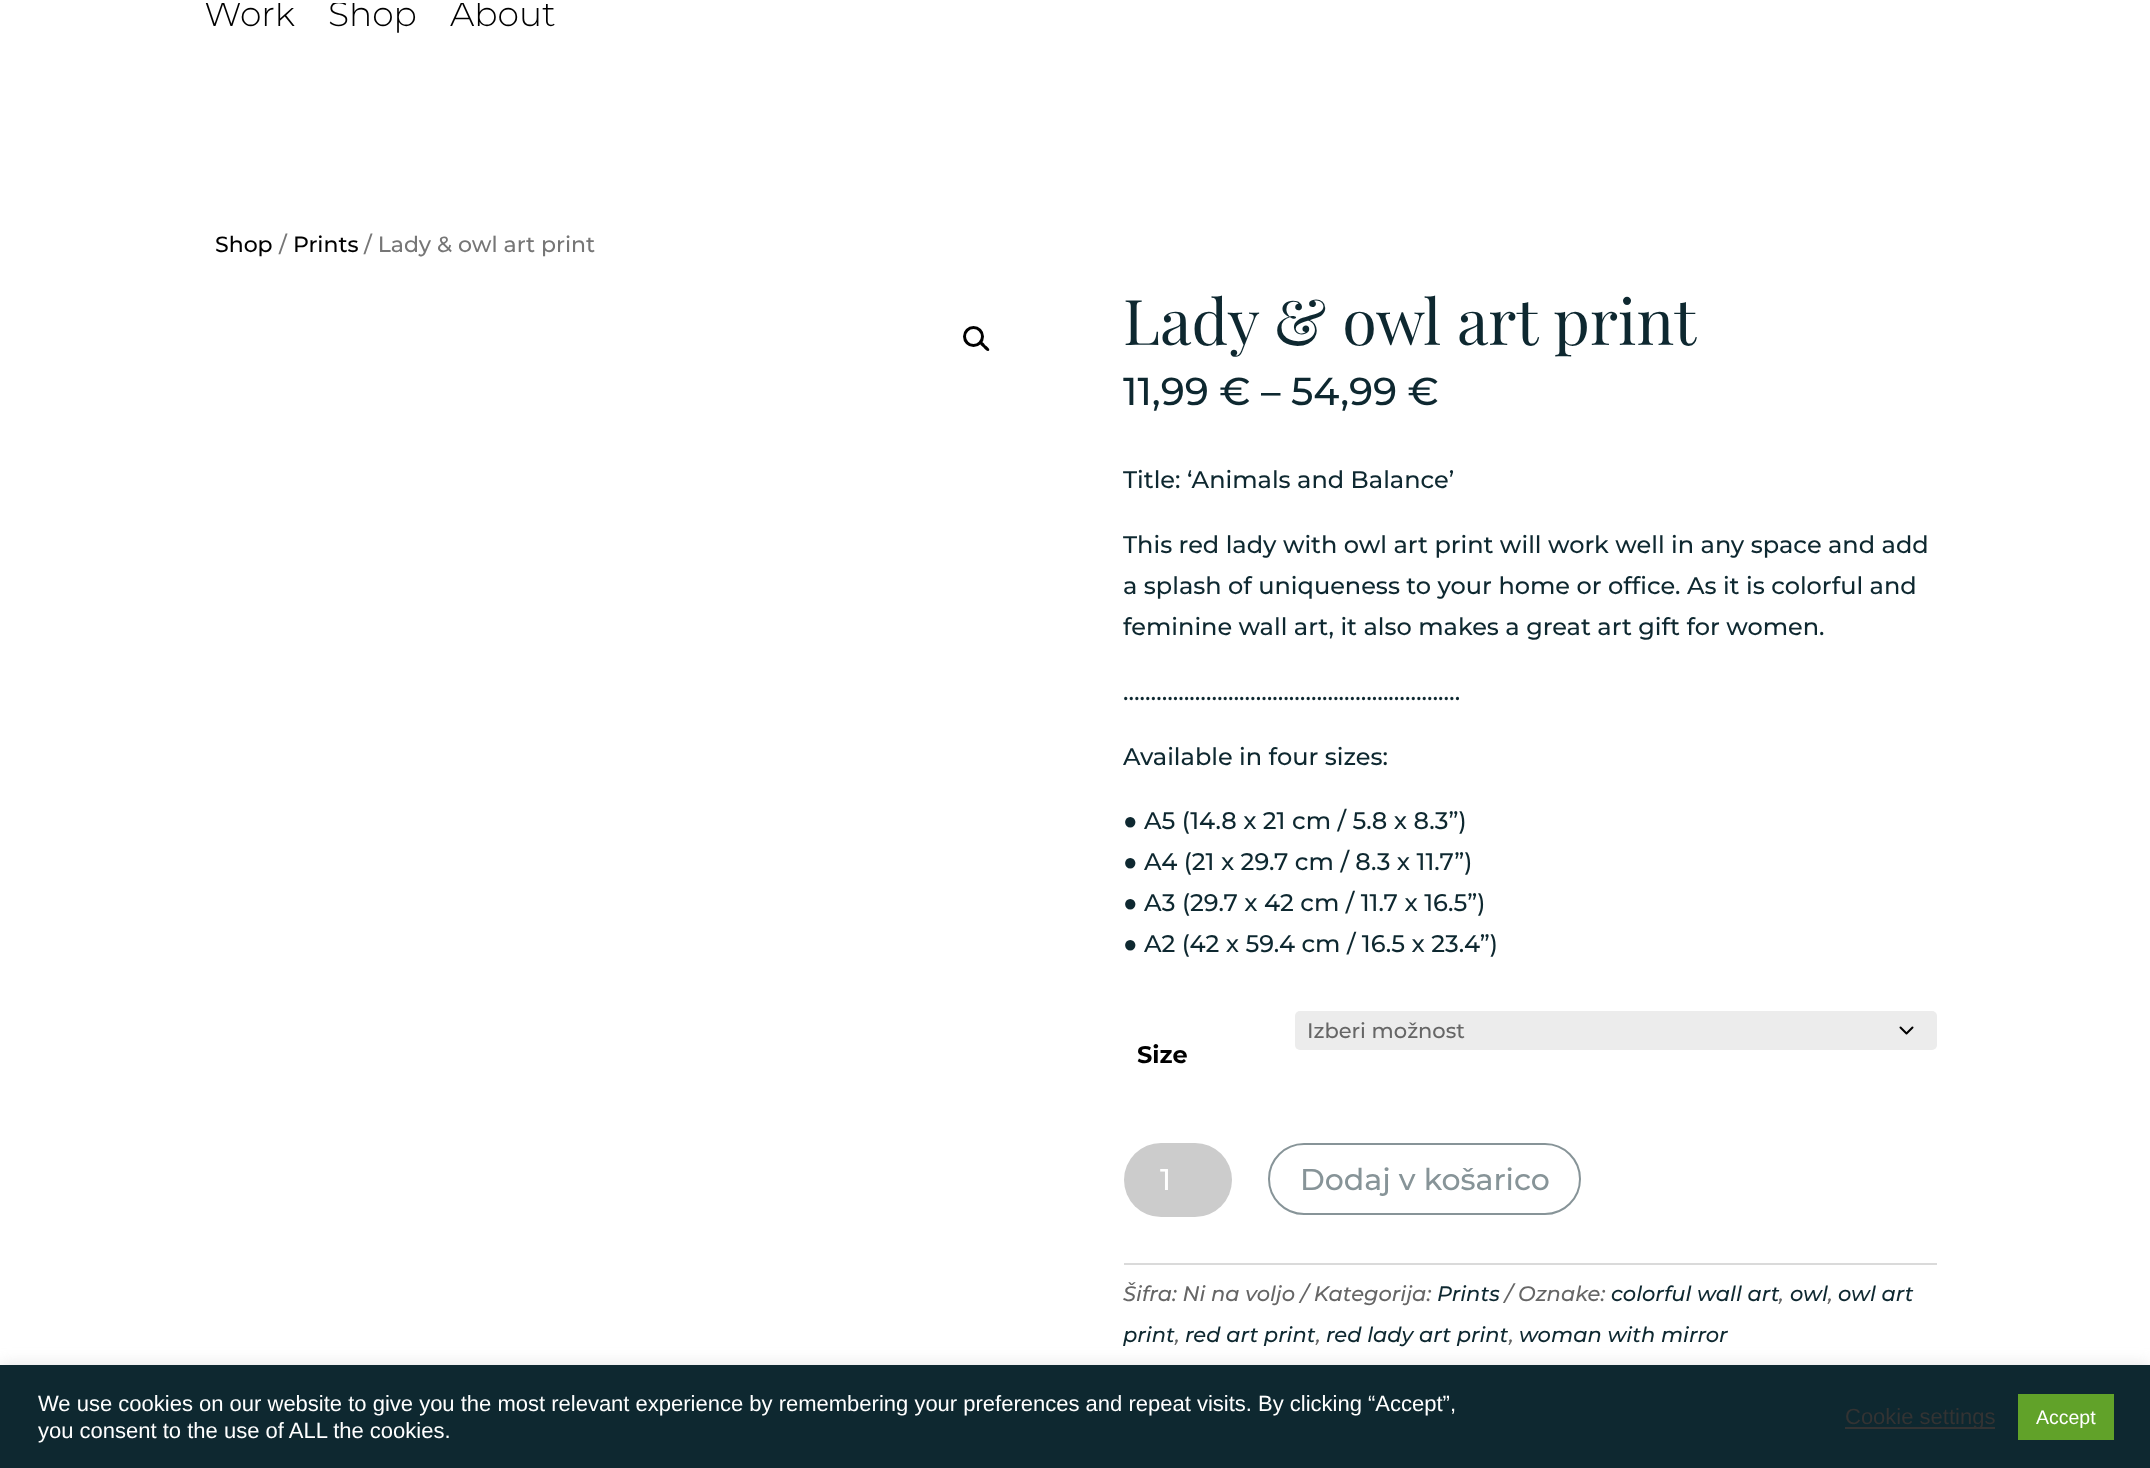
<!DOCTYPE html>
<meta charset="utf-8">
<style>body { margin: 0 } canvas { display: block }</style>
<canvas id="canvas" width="2150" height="1468"></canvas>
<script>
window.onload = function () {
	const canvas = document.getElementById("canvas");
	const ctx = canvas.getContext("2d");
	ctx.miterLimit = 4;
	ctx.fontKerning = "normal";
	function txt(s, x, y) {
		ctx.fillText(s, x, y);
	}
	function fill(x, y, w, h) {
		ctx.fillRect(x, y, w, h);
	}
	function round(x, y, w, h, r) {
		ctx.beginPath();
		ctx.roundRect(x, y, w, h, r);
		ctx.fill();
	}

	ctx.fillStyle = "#FFFFFF";
	fill(0, 0, 2150, 1468);
	ctx.beginPath();
	ctx.arc(973.5, 336.5, 9, 0, Math.PI * 2);
	ctx.strokeStyle = "#000000";
	ctx.lineWidth = 3;
	ctx.stroke();
	ctx.fillStyle = "#000000";
	ctx.beginPath();
	ctx.moveTo(980.5, 342);
	ctx.bezierCurveTo(982, 340.5, 985, 344.5, 985.5, 345.5);
	ctx.bezierCurveTo(986.5, 346, 990.5, 349, 989, 350.5);
	ctx.bezierCurveTo(987, 352.5, 984.5, 348.5, 983.5, 347.5);
	ctx.bezierCurveTo(982.5, 346.5, 978.5, 344, 980.5, 342);
	ctx.closePath();
	ctx.fill();
	ctx.fillStyle = "#ECECEC";
	round(1295, 1011, 642, 39, 5);
	ctx.beginPath();
	ctx.moveTo(1900.5, 1027.5);
	ctx.lineTo(1906.5, 1033.5);
	ctx.lineTo(1912.5, 1027.5);
	ctx.lineWidth = 2;
	ctx.lineCap = "round";
	ctx.lineJoin = "round";
	ctx.stroke();
	ctx.fillStyle = "#CCCCCC";
	round(1124, 1143, 108, 74, 37);
	ctx.beginPath();
	ctx.roundRect(1269, 1144, 311, 70, 35);
	ctx.strokeStyle = "#879498";
	ctx.lineJoin = "miter";
	ctx.stroke();
	ctx.fillStyle = "#DADADA";
	fill(1124, 1263, 813, 2);
	ctx.fillStyle = "rgba(172, 171, 171, 0.3)";
	ctx.filter = "blur(7.5px)";
	ctx.beginPath();
	ctx.rect(0, 1364, 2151, 103);
	ctx.fill();
	ctx.filter = "none";
	ctx.fillStyle = "#0E2830";
	fill(0, 1365, 2150, 103);
	ctx.fillStyle = "#333333";
	fill(1845, 1427, 150, 2);
	ctx.fillStyle = "#61A229";
	fill(2018, 1394, 96, 46);
	ctx.save();
	ctx.beginPath();
	ctx.rect(204, 3, 92, 33);
	ctx.clip();
	ctx.font = "300 34.5px Montserrat";
	ctx.fillStyle = "#000000";
	txt("Work", 204, 26);
	ctx.restore();
	ctx.save();
	ctx.beginPath();
	ctx.rect(329, 3, 88, 33);
	ctx.clip();
	ctx.font = "300 34.5px Montserrat";
	ctx.fillStyle = "#000000";
	txt("Shop", 328, 26);
	ctx.restore();
	ctx.save();
	ctx.beginPath();
	ctx.rect(450, 3, 105, 33);
	ctx.clip();
	ctx.font = "300 34.5px Montserrat";
	ctx.fillStyle = "#000000";
	txt("About", 450, 26);
	ctx.restore();
	ctx.font = "500 22px Montserrat";
	ctx.fillStyle = "#000000";
	txt("Shop", 215, 252);
	ctx.fillStyle = "#767676";
	txt("/", 279, 252);
	ctx.fillStyle = "#000000";
	txt("Prints", 293, 252);
	ctx.fillStyle = "#767676";
	txt("/ Lady & owl art print", 364, 252);
	ctx.font = "63px Playfair Display";
	ctx.fillStyle = "#0E2830";
	txt("Lady & owl art print", 1123, 345);
	ctx.font = "500 39px Montserrat";
	txt("11,99 € – 54,99 €", 1123, 405);
	ctx.font = "500 24px Montserrat";
	txt("Title: ‘Animals and Balance’", 1123, 488);
	txt("This red lady with owl art print will work well in any space and add", 1123, 553);
	txt("a splash of uniqueness to your home or office. As it is colorful and", 1123, 594);
	txt("feminine wall art, it also makes a great art gift for women.", 1123, 635);
	txt("…………………………………………………….", 1123, 700);
	txt("Available in four sizes:", 1123, 765);
	ctx.font = "24px Liberation Sans";
	txt("●", 1123, 829);
	ctx.font = "500 24px Montserrat";
	txt("A5 (14.8 x 21 cm / 5.8 x 8.3”)", 1144, 829);
	ctx.font = "24px Liberation Sans";
	txt("●", 1123, 870);
	ctx.font = "500 24px Montserrat";
	txt("A4 (21 x 29.7 cm / 8.3 x 11.7”)", 1144, 870);
	ctx.font = "24px Liberation Sans";
	txt("●", 1123, 911);
	ctx.font = "500 24px Montserrat";
	txt("A3 (29.7 x 42 cm / 11.7 x 16.5”)", 1144, 911);
	ctx.font = "24px Liberation Sans";
	txt("●", 1123, 952);
	ctx.font = "500 24px Montserrat";
	txt("A2 (42 x 59.4 cm / 16.5 x 23.4”)", 1144, 952);
	ctx.font = "500 21px Montserrat";
	ctx.fillStyle = "#666666";
	txt("Izberi možnost", 1307, 1038);
	ctx.font = "bold 24px Montserrat";
	ctx.fillStyle = "#000000";
	txt("Size", 1137, 1063);
	ctx.font = "500 30px Montserrat";
	ctx.fillStyle = "#FFFFFF";
	txt("1", 1160, 1190);
	ctx.fillStyle = "#879498";
	txt("Dodaj v košarico", 1300, 1190);
	ctx.font = "italic 500 21px Montserrat";
	ctx.fillStyle = "#666666";
	txt("Šifra: Ni na voljo / Kategorija:", 1123, 1301);
	ctx.fillStyle = "#0E2830";
	txt("Prints", 1437, 1301);
	ctx.fillStyle = "#666666";
	txt("/ Oznake:", 1505, 1301);
	ctx.fillStyle = "#0E2830";
	txt("colorful wall art", 1611, 1301);
	ctx.fillStyle = "#666666";
	txt(",", 1779, 1301);
	ctx.fillStyle = "#0E2830";
	txt("owl", 1790, 1301);
	ctx.fillStyle = "#666666";
	txt(",", 1828, 1301);
	ctx.fillStyle = "#0E2830";
	txt("owl art", 1838, 1301);
	txt("print", 1123, 1342);
	ctx.fillStyle = "#666666";
	txt(",", 1175, 1342);
	ctx.fillStyle = "#0E2830";
	txt("red art print", 1185, 1342);
	ctx.fillStyle = "#666666";
	txt(",", 1316, 1342);
	ctx.fillStyle = "#0E2830";
	txt("red lady art print", 1326, 1342);
	ctx.fillStyle = "#666666";
	txt(",", 1509, 1342);
	ctx.fillStyle = "#0E2830";
	txt("woman with mirror", 1519, 1342);
	ctx.font = "22px Liberation Sans";
	ctx.fillStyle = "#FFFFFF";
	txt("We use cookies on our website to give you the most relevant experience by remembering your preferences and repeat visits. By clicking “Accept”,", 38, 1411);
	txt("you consent to the use of ALL the cookies.", 38, 1438);
	ctx.fillStyle = "#333333";
	txt("Cookie settings", 1845, 1424);
	ctx.font = "19.5px Liberation Sans";
	ctx.fillStyle = "#FFFFFF";
	txt("Accept", 2036, 1424);
};
</script>
